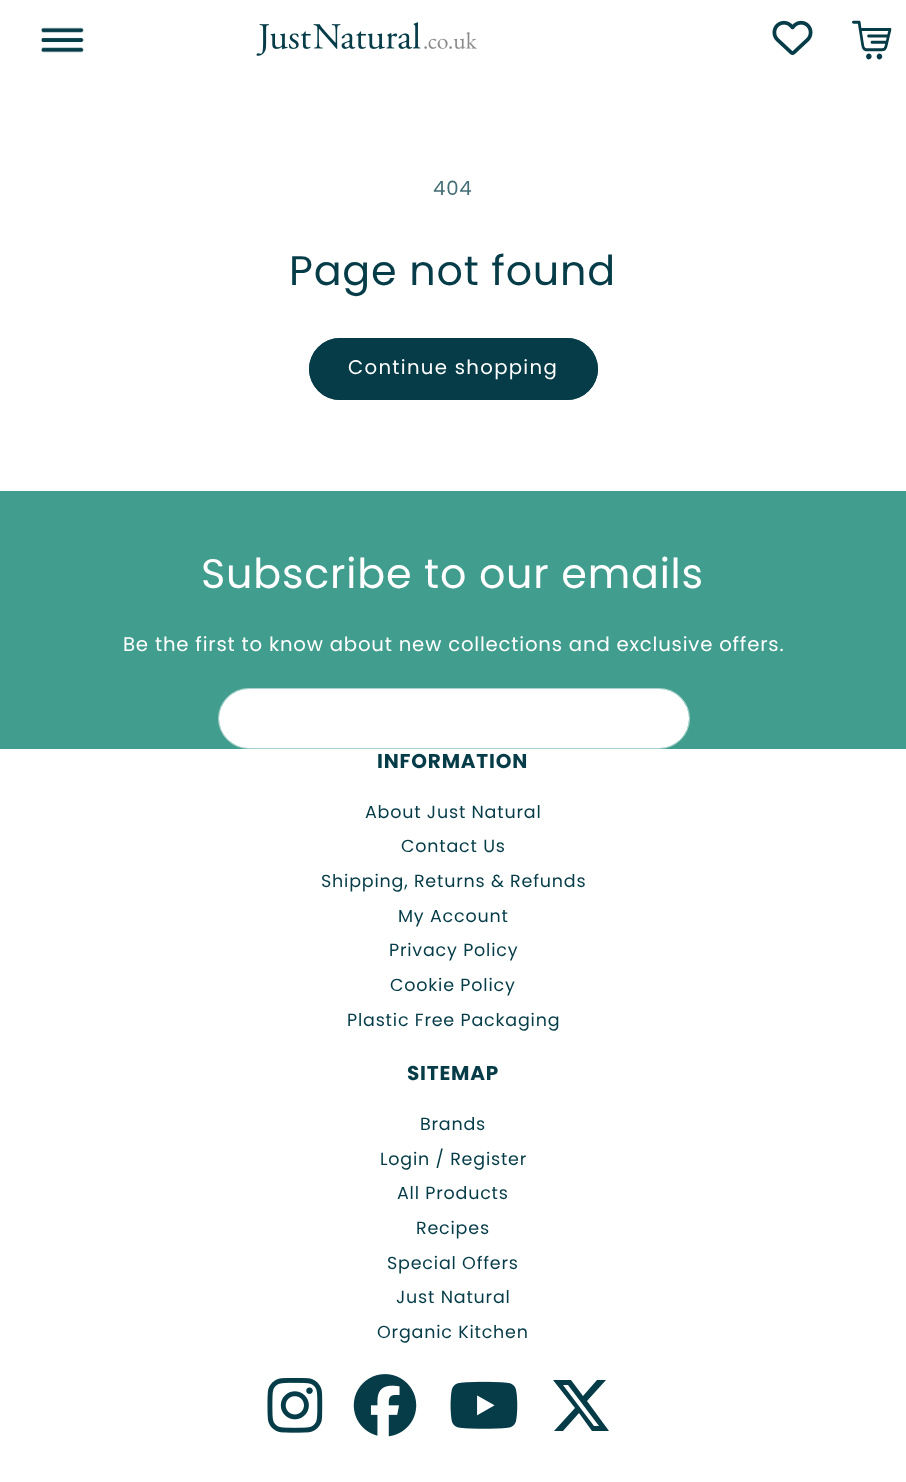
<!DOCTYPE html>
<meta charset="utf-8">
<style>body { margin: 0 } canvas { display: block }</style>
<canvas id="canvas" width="906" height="1482"></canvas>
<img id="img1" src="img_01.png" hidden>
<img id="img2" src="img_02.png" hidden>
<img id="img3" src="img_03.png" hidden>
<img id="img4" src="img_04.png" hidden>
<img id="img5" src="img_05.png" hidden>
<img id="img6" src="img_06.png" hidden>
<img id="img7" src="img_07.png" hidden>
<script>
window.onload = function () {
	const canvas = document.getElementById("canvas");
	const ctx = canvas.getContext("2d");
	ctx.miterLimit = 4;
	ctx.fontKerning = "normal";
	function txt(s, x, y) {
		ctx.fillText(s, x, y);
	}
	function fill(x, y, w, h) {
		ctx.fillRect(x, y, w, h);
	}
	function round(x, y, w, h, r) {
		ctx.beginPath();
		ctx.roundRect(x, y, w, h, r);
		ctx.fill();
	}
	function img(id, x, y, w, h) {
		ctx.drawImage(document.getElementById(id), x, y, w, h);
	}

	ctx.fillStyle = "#FFFFFF";
	fill(0, 0, 906, 1482);
	img("img1", 41, 27, 43, 26);
	img("img2", 256, 22, 221, 34);
	img("img3", 772, 20, 41, 35);
	img("img4", 852, 20, 40, 40);
	ctx.fillStyle = "#053C48";
	round(309, 338, 289, 62, 31);
	ctx.beginPath();
	ctx.roundRect(309.5, 338.5, 288, 61, 30.5);
	ctx.strokeStyle = "#053C48";
	ctx.stroke();
	ctx.fillStyle = "#419D8E";
	fill(0, 491, 906, 258);
	ctx.fillStyle = "#FFFFFF";
	round(219, 689, 470, 59, 29.5);
	ctx.beginPath();
	ctx.roundRect(218.5, 688.5, 471, 60, 30);
	ctx.strokeStyle = "rgba(255, 255, 255, 0.55)";
	ctx.stroke();
	img("img5", 267, 1378, 56, 55);
	img("img6", 353, 1374, 64, 63);
	img("img7", 450, 1381, 68, 48);
	ctx.fillStyle = "#053C48";
	ctx.beginPath();
	ctx.moveTo(597, 1380);
	ctx.lineTo(606, 1380);
	ctx.lineTo(597, 1380);
	ctx.lineTo(606, 1380);
	ctx.lineTo(587, 1401);
	ctx.lineTo(609, 1431);
	ctx.lineTo(592, 1431);
	ctx.lineTo(579, 1413);
	ctx.lineTo(563, 1431);
	ctx.lineTo(554, 1431);
	ctx.lineTo(575, 1408);
	ctx.lineTo(553, 1380);
	ctx.lineTo(571, 1380);
	ctx.lineTo(583, 1396);
	ctx.closePath();
	ctx.moveTo(594, 1426);
	ctx.lineTo(599, 1426);
	ctx.lineTo(594, 1426);
	ctx.lineTo(599, 1426);
	ctx.lineTo(568, 1385);
	ctx.lineTo(563, 1385);
	ctx.closePath();
	ctx.fill();
	ctx.letterSpacing = "0.8px";
	ctx.font = "19.7px Poppins";
	ctx.fillStyle = "#446D76";
	txt("404", 433, 195);
	ctx.font = "41.25px Poppins";
	ctx.fillStyle = "#053C48";
	txt("Page not found", 289, 285);
	ctx.letterSpacing = "1.3px";
	ctx.font = "19.7px Poppins";
	ctx.fillStyle = "#FFFFFF";
	txt("Continue shopping", 348, 374);
	ctx.letterSpacing = "0.8px";
	ctx.font = "41.25px Poppins";
	txt("Subscribe to our emails", 201, 588);
	ctx.font = "19.7px Poppins";
	txt("Be the first to know about new collections and exclusive offers.", 123, 651);
	ctx.font = "bold 20px Poppins";
	ctx.fillStyle = "#053C48";
	txt("INFORMATION", 377, 768);
	ctx.font = "17.5px Poppins";
	txt("About Just Natural", 365, 818);
	txt("Contact Us", 401, 852);
	txt("Shipping, Returns & Refunds", 321, 887);
	txt("My Account", 398, 922);
	txt("Privacy Policy", 389, 956);
	txt("Cookie Policy", 390, 991);
	txt("Plastic Free Packaging", 347, 1026);
	ctx.font = "bold 20px Poppins";
	txt("SITEMAP", 407, 1080);
	ctx.font = "17.5px Poppins";
	txt("Brands", 420, 1130);
	txt("Login / Register", 380, 1165);
	txt("All Products", 397, 1199);
	txt("Recipes", 416, 1234);
	txt("Special Offers", 387, 1269);
	txt("Just Natural", 396, 1303);
	txt("Organic Kitchen", 377, 1338);
};
</script>
